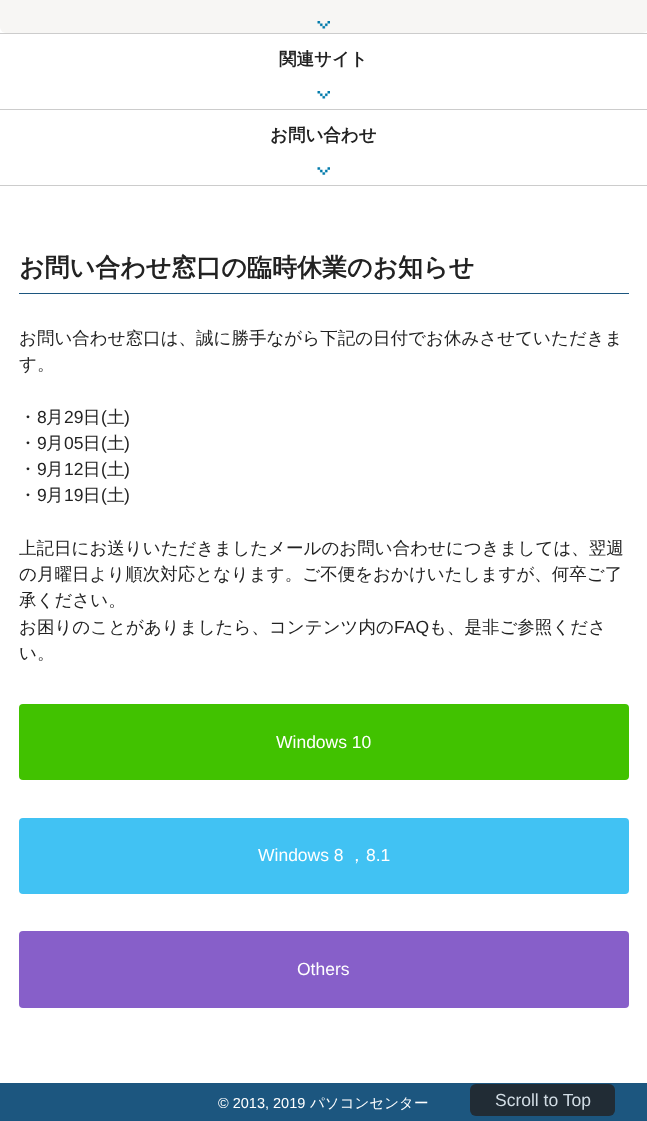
<!DOCTYPE html>
<meta charset="utf-8">
<style>body { margin: 0 } canvas { display: block }</style>
<canvas id="canvas" width="647" height="1121"></canvas>
<img id="img1" src="img_01.png" hidden>
<img id="img2" src="img_02.png" hidden>
<img id="img3" src="img_03.png" hidden>
<script>
window.onload = function () {
	const canvas = document.getElementById("canvas");
	const ctx = canvas.getContext("2d");
	ctx.miterLimit = 4;
	ctx.fontKerning = "normal";
	function txt(s, x, y) {
		ctx.fillText(s, x, y);
	}
	function fill(x, y, w, h) {
		ctx.fillRect(x, y, w, h);
	}
	function round(x, y, w, h, r) {
		ctx.beginPath();
		ctx.roundRect(x, y, w, h, r);
		ctx.fill();
	}
	function img(id, x, y, w, h) {
		ctx.drawImage(document.getElementById(id), x, y, w, h);
	}

	ctx.fillStyle = "#FFFFFF";
	fill(0, 0, 647, 1121);
	ctx.fillStyle = "#CCCCCC";
	fill(0, 33, 647, 1);
	ctx.fillStyle = "#F7F6F4";
	round(0, -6, 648, 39, 6);
	img("img1", 317, 21, 13, 8);
	ctx.fillStyle = "#CCCCCC";
	fill(0, 109, 647, 1);
	img("img2", 317, 91, 13, 8);
	fill(0, 185, 647, 1);
	img("img3", 317, 167, 13, 8);
	ctx.fillStyle = "#1C567F";
	fill(19, 293, 610, 1);
	ctx.fillStyle = "#41C200";
	round(19, 704, 610, 76, 4);
	ctx.fillStyle = "#41C2F3";
	round(19, 818, 610, 76, 4);
	ctx.fillStyle = "#875FC9";
	round(19, 931, 610, 77, 4);
	ctx.fillStyle = "#1C567F";
	fill(0, 1083, 647, 38);
	ctx.fillStyle = "#212C35";
	round(470, 1084, 145, 32, 6);
	ctx.font = "bold 17.5px WenQuanYi Zen Hei";
	ctx.fillStyle = "#222222";
	txt("関連サイト", 279, 65);
	txt("お問い合わせ", 270, 141);
	ctx.font = "bold 25px WenQuanYi Zen Hei";
	txt("お問い合わせ窓口の臨時休業のお知らせ", 19, 276);
	ctx.font = "500 17.5px WenQuanYi Zen Hei";
	txt("お問い合わせ窓口は、誠に勝手ながら下記の日付でお休みさせていただきま", 19, 344);
	txt("す。", 19, 370);
	txt("・", 19, 423);
	ctx.font = "17.5px Liberation Sans";
	txt("8", 37, 423);
	ctx.font = "500 17.5px WenQuanYi Zen Hei";
	txt("月", 46, 423);
	ctx.font = "17.5px Liberation Sans";
	txt("29", 64, 423);
	ctx.font = "500 17.5px WenQuanYi Zen Hei";
	txt("日", 83, 423);
	ctx.font = "17.5px Liberation Sans";
	txt("(", 101, 423);
	ctx.font = "500 17.5px WenQuanYi Zen Hei";
	txt("土", 107, 423);
	ctx.font = "17.5px Liberation Sans";
	txt(")", 124, 423);
	ctx.font = "500 17.5px WenQuanYi Zen Hei";
	txt("・", 19, 449);
	ctx.font = "17.5px Liberation Sans";
	txt("9", 37, 449);
	ctx.font = "500 17.5px WenQuanYi Zen Hei";
	txt("月", 46, 449);
	ctx.font = "17.5px Liberation Sans";
	txt("05", 64, 449);
	ctx.font = "500 17.5px WenQuanYi Zen Hei";
	txt("日", 83, 449);
	ctx.font = "17.5px Liberation Sans";
	txt("(", 101, 449);
	ctx.font = "500 17.5px WenQuanYi Zen Hei";
	txt("土", 107, 449);
	ctx.font = "17.5px Liberation Sans";
	txt(")", 124, 449);
	ctx.font = "500 17.5px WenQuanYi Zen Hei";
	txt("・", 19, 475);
	ctx.font = "17.5px Liberation Sans";
	txt("9", 37, 475);
	ctx.font = "500 17.5px WenQuanYi Zen Hei";
	txt("月", 46, 475);
	ctx.font = "17.5px Liberation Sans";
	txt("12", 64, 475);
	ctx.font = "500 17.5px WenQuanYi Zen Hei";
	txt("日", 83, 475);
	ctx.font = "17.5px Liberation Sans";
	txt("(", 101, 475);
	ctx.font = "500 17.5px WenQuanYi Zen Hei";
	txt("土", 107, 475);
	ctx.font = "17.5px Liberation Sans";
	txt(")", 124, 475);
	ctx.font = "500 17.5px WenQuanYi Zen Hei";
	txt("・", 19, 501);
	ctx.font = "17.5px Liberation Sans";
	txt("9", 37, 501);
	ctx.font = "500 17.5px WenQuanYi Zen Hei";
	txt("月", 46, 501);
	ctx.font = "17.5px Liberation Sans";
	txt("19", 64, 501);
	ctx.font = "500 17.5px WenQuanYi Zen Hei";
	txt("日", 83, 501);
	ctx.font = "17.5px Liberation Sans";
	txt("(", 101, 501);
	ctx.font = "500 17.5px WenQuanYi Zen Hei";
	txt("土", 107, 501);
	ctx.font = "17.5px Liberation Sans";
	txt(")", 124, 501);
	ctx.font = "500 17.5px WenQuanYi Zen Hei";
	txt("上記日にお送りいただきましたメールのお問い合わせにつきましては、翌週", 19, 554);
	txt("の月曜日より順次対応となります。ご不便をおかけいたしますが、何卒ご了", 19, 580);
	txt("承ください。", 19, 606);
	txt("お困りのことがありましたら、コンテンツ内の", 19, 633);
	ctx.font = "17.5px Liberation Sans";
	txt("FAQ", 394, 633);
	ctx.font = "500 17.5px WenQuanYi Zen Hei";
	txt("も、是非ご参照くださ", 429, 633);
	txt("い。", 19, 659);
	ctx.font = "17.5px Liberation Sans";
	ctx.fillStyle = "#FFFFFF";
	txt("Windows 10", 276, 748);
	txt("Windows 8", 258, 861);
	ctx.font = "500 17.5px WenQuanYi Zen Hei";
	txt("，", 348, 861);
	ctx.font = "17.5px Liberation Sans";
	txt("8.1", 366, 861);
	txt("Others", 297, 975);
	ctx.font = "14.5px Liberation Sans";
	txt("© 2013, 2019", 218, 1108);
	ctx.font = "500 14.5px WenQuanYi Zen Hei";
	txt("パソコンセンター", 310, 1108);
	ctx.font = "17.5px Liberation Sans";
	ctx.fillStyle = "#D2DDE5";
	txt("Scroll to Top", 495, 1106);
};
</script>
